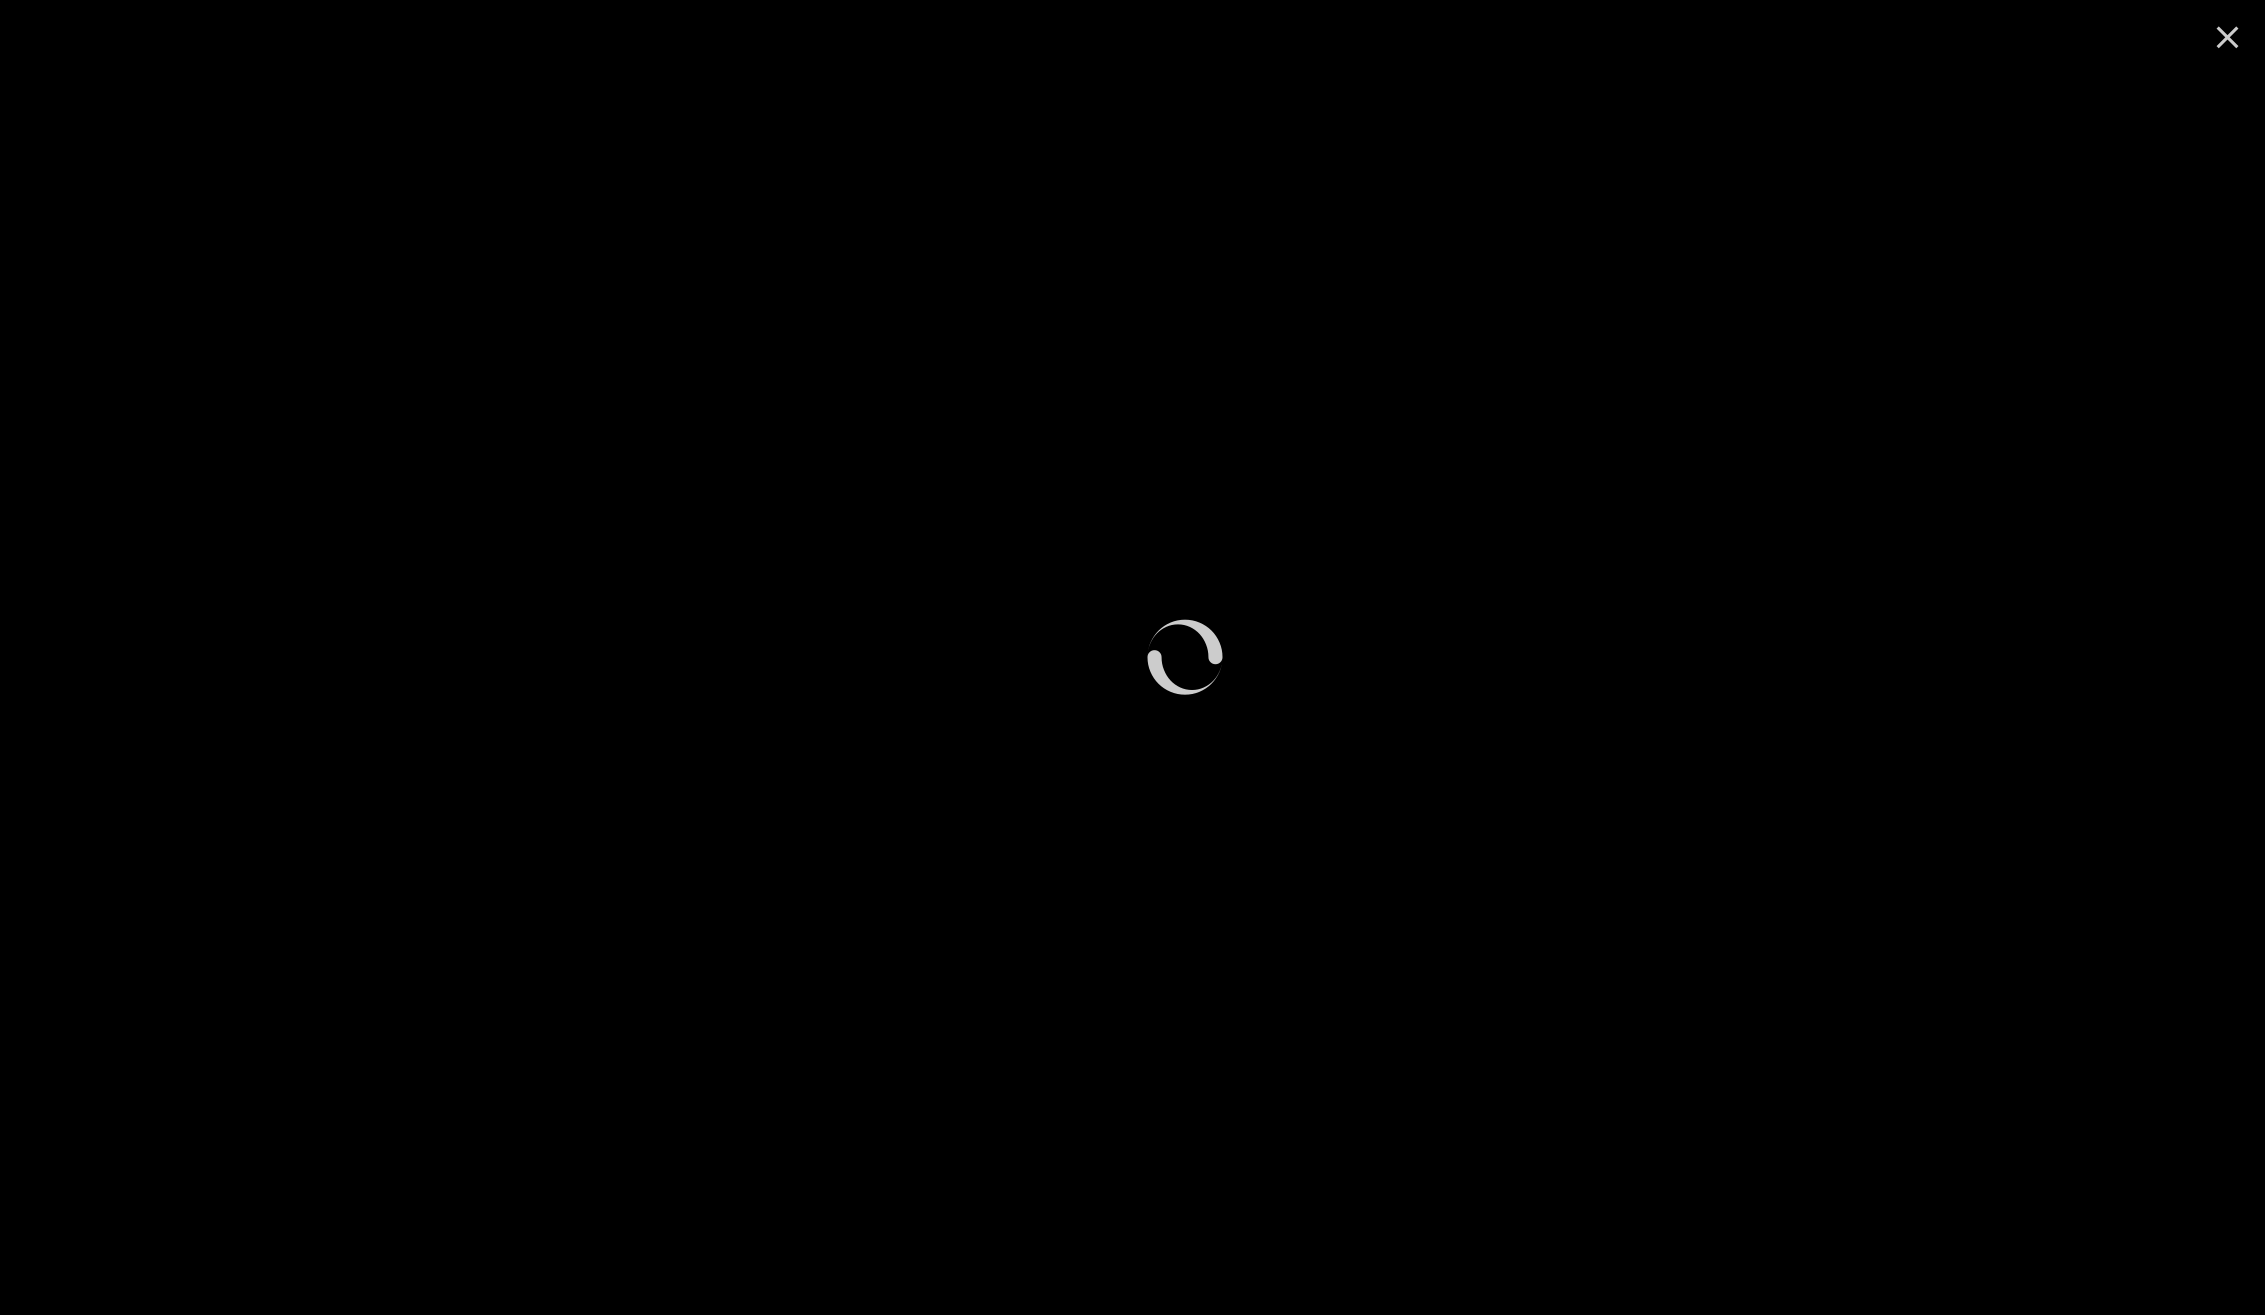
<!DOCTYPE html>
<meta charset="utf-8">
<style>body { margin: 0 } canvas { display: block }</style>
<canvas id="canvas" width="2265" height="1315"></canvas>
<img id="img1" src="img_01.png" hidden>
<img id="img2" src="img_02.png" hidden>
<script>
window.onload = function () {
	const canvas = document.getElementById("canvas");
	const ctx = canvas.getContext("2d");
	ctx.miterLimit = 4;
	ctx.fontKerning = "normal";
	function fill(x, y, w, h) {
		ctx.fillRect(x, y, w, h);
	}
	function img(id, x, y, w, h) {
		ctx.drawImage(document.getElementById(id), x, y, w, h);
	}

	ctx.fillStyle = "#000000";
	fill(0, 0, 2265, 1315);
	img("img1", 2216, 26, 23, 23);
	img("img2", 1147, 619, 76, 76);
};
</script>
